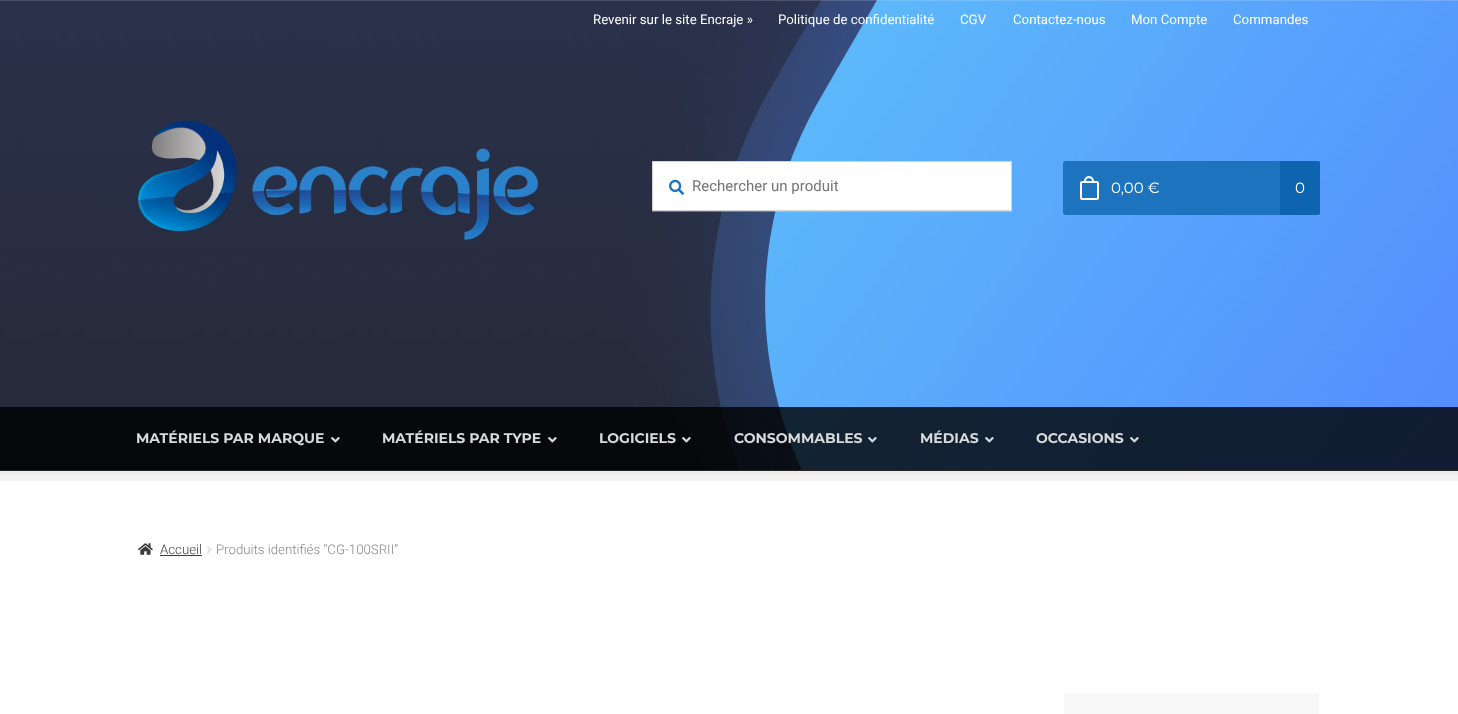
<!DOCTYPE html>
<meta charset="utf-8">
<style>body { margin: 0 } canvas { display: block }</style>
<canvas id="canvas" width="1458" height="714"></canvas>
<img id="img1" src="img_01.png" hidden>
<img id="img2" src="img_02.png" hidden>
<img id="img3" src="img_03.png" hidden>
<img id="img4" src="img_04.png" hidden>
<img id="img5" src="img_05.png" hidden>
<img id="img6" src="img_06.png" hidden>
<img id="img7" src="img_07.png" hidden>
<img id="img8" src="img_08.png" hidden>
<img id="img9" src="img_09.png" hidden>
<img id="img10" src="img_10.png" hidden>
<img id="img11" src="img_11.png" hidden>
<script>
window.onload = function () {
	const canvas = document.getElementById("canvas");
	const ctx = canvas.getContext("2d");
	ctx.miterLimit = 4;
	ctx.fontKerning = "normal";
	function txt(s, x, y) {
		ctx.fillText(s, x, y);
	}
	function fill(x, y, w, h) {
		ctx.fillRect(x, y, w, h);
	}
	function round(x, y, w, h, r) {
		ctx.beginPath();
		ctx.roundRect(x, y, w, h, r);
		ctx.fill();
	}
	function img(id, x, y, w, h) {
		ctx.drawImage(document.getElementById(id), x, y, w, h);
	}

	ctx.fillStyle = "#FFFFFF";
	fill(0, 0, 1458, 714);
	ctx.fillStyle = "#F9F9F9";
	fill(0, 471, 1458, 3);
	img("img1", 0, 0, 1458, 470);
	ctx.fillStyle = "#242424";
	fill(0, 470, 1458, 1);
	ctx.fillStyle = "rgba(255, 255, 255, 0.15)";
	fill(0, 0, 1458, 1);
	img("img2", 138, 120, 400, 120);
	ctx.fillStyle = "#FFFFFF";
	ctx.beginPath();
	ctx.rect(652.5, 161.5, 359, 49);
	ctx.fill();
	ctx.strokeStyle = "#D2D2D2";
	ctx.stroke();
	img("img3", 669, 179, 15, 16);
	ctx.fillStyle = "rgba(255, 255, 255, 0.3)";
	fill(652, 211, 360, 1);
	ctx.fillStyle = "#1E73BE";
	round(1063, 161, 257, 54, 3);
	ctx.beginPath();
	ctx.moveTo(1089, 177);
	ctx.bezierCurveTo(1095.5, 177, 1095.5, 194, 1089, 194);
	ctx.bezierCurveTo(1082.5, 194, 1082.5, 177, 1089, 177);
	ctx.closePath();
	ctx.strokeStyle = "#FFFFFF";
	ctx.lineWidth = 2;
	ctx.stroke();
	ctx.beginPath();
	ctx.roundRect(1081, 182, 17, 17, 1);
	ctx.fill();
	ctx.stroke();
	ctx.fillStyle = "#0F64AF";
	ctx.beginPath();
	ctx.roundRect(1280, 161, 40, 54, [0, 2, 2, 0]);
	ctx.fill();
	ctx.fillStyle = "rgba(0, 0, 0, 0.05)";
	fill(0, 471, 1458, 10);
	ctx.fillStyle = "rgba(0, 0, 0, 0.8)";
	fill(0, 407, 1458, 63);
	img("img4", 331, 437, 9, 6);
	img("img5", 548, 437, 9, 6);
	img("img6", 682, 437, 9, 6);
	img("img7", 868, 437, 9, 6);
	img("img8", 985, 437, 9, 6);
	img("img9", 1130, 437, 9, 6);
	img("img10", 138, 543, 15, 12);
	ctx.fillStyle = "#3D3D3D";
	fill(160, 555, 42, 1);
	img("img11", 207, 546, 5, 8);
	ctx.fillStyle = "#F8F8F8";
	fill(1064, 693, 255, 21);
	ctx.font = "13.25px Roboto";
	ctx.fillStyle = "#FFFFFF";
	txt("Revenir sur le site Encraje »", 593, 24);
	txt("Politique de confidentialité", 778, 24);
	txt("CGV", 960, 24);
	txt("Contactez-nous", 1013, 24);
	txt("Mon Compte", 1131, 24);
	txt("Commandes", 1233, 24);
	ctx.font = "15px Roboto";
	ctx.fillStyle = "#757575";
	txt("Rechercher un produit", 692, 191);
	ctx.font = "15px Montserrat";
	ctx.fillStyle = "#FFFFFF";
	txt("0,00 €", 1111, 193);
	txt("0", 1295, 193);
	ctx.font = "bold 14px Montserrat";
	ctx.fillStyle = "#D9D9D9";
	txt("MATÉRIELS PAR MARQUE", 136, 443);
	txt("MATÉRIELS PAR TYPE", 382, 443);
	txt("LOGICIELS", 599, 443);
	txt("CONSOMMABLES", 734, 443);
	txt("MÉDIAS", 920, 443);
	txt("OCCASIONS", 1036, 443);
	ctx.font = "300 13.25px Roboto";
	ctx.fillStyle = "#3D3D3D";
	txt("Accueil", 160, 554);
	ctx.fillStyle = "#888888";
	txt("Produits identifiés “CG-100SRII”", 216, 554);
};
</script>
